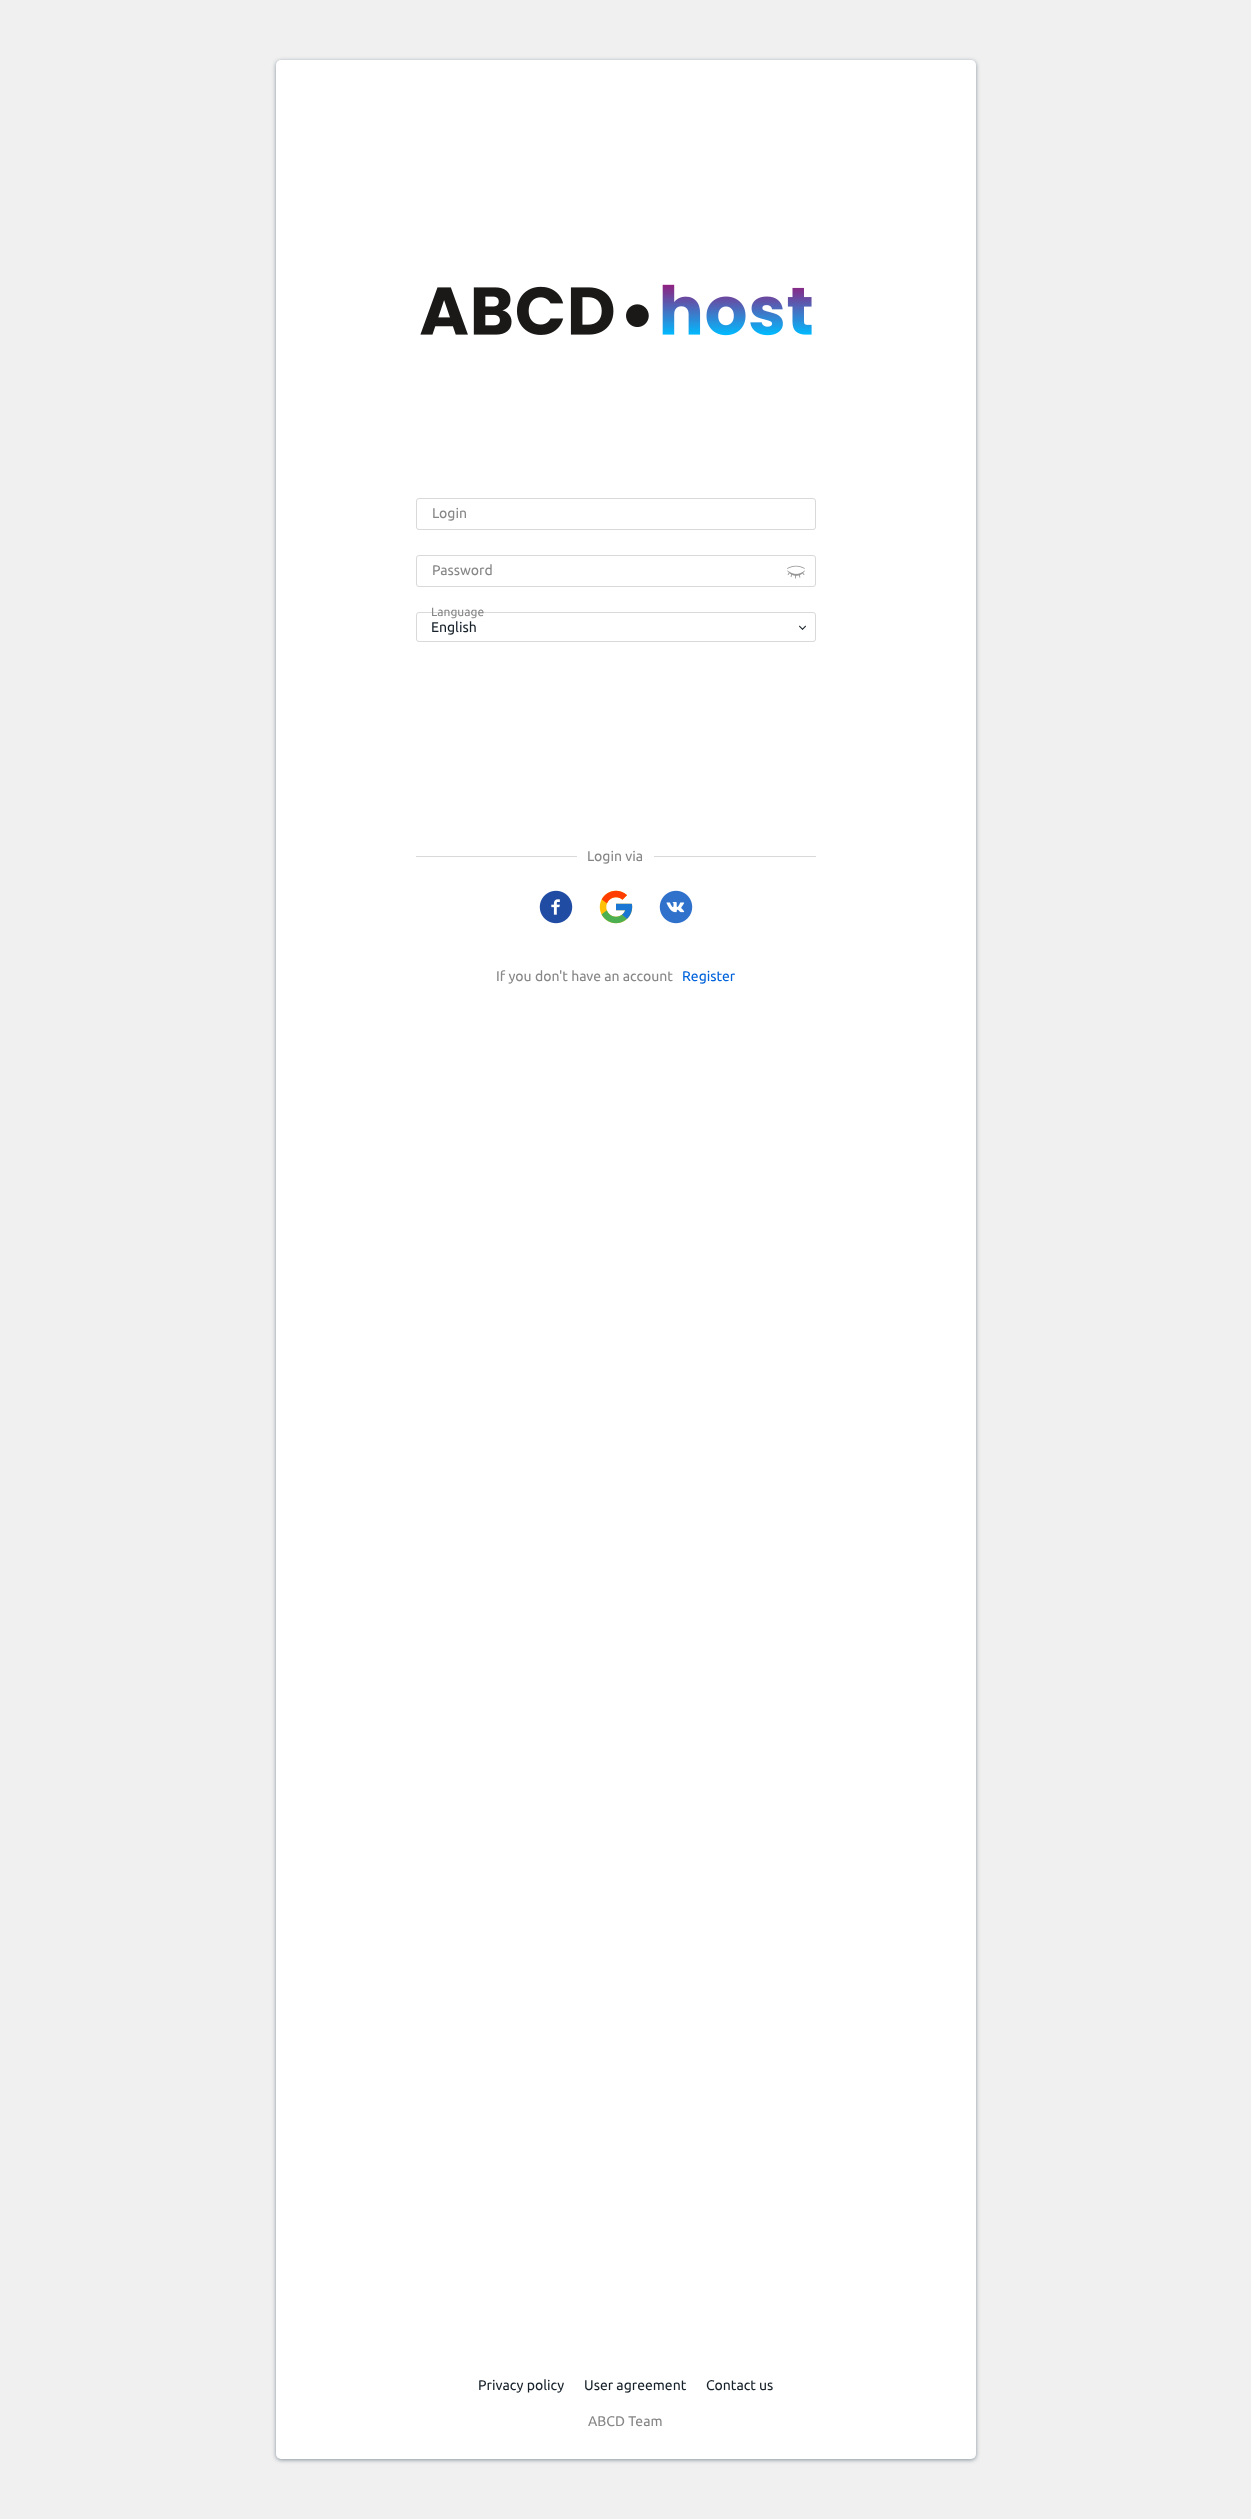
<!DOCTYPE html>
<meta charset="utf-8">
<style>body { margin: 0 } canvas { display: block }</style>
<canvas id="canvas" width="1251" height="2519"></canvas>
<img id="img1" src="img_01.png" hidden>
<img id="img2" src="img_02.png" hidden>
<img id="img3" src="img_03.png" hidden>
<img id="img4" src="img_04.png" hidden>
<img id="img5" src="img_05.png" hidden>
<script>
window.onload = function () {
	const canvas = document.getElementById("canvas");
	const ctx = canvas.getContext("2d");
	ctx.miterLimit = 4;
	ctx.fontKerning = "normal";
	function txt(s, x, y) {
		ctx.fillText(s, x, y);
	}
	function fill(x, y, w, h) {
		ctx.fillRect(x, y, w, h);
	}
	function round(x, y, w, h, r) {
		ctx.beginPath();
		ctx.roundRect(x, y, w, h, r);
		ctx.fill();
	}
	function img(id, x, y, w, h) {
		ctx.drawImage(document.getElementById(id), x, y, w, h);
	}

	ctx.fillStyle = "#F0F0F0";
	fill(0, 0, 1251, 2519);
	ctx.fillStyle = "rgba(31, 54, 74, 0.5)";
	ctx.filter = "blur(2px)";
	ctx.beginPath();
	ctx.roundRect(276, 61, 700, 2399, 5);
	ctx.fill();
	ctx.filter = "none";
	ctx.fillStyle = "#FFFFFF";
	round(276, 60, 700, 2399, 5);
	img("img1", 420, 284, 392, 52);
	ctx.beginPath();
	ctx.roundRect(416.5, 498.5, 399, 31, 2.5);
	ctx.strokeStyle = "#D9D9D9";
	ctx.stroke();
	ctx.beginPath();
	ctx.roundRect(416.5, 555.5, 399, 31, 2.5);
	ctx.stroke();
	img("img2", 787, 565, 18, 14);
	ctx.beginPath();
	ctx.roundRect(416.5, 612.5, 399, 29, 2.5);
	ctx.stroke();
	ctx.fillStyle = "#17212A";
	ctx.beginPath();
	ctx.moveTo(802, 629);
	ctx.lineTo(805.5, 625.5);
	ctx.lineTo(806, 626.5);
	ctx.lineTo(802.5, 630);
	ctx.closePath();
	ctx.fill();
	ctx.beginPath();
	ctx.moveTo(799, 626.5);
	ctx.lineTo(799.5, 625.5);
	ctx.lineTo(803, 629);
	ctx.lineTo(802.5, 630);
	ctx.closePath();
	ctx.fill();
	ctx.fillStyle = "#D9D9D9";
	fill(416, 856, 400, 1);
	ctx.fillStyle = "#FFFFFF";
	fill(577, 856, 77, 1);
	img("img3", 539, 890, 34, 34);
	img("img4", 599, 890, 34, 34);
	img("img5", 659, 890, 34, 34);
	ctx.font = "14px Ubuntu";
	ctx.fillStyle = "#878787";
	txt("Login", 432, 518);
	txt("Password", 432, 575);
	ctx.font = "12px Ubuntu";
	txt("Language", 431, 616);
	ctx.font = "14px Ubuntu";
	ctx.fillStyle = "#17212A";
	txt("English", 431, 632);
	ctx.fillStyle = "#878787";
	txt("Login via", 587, 861);
	txt("If you don't have an account", 496, 981);
	ctx.fillStyle = "#0063DB";
	txt("Register", 682, 981);
	ctx.fillStyle = "#17212A";
	txt("Privacy policy", 478, 2390);
	txt("User agreement", 584, 2390);
	txt("Contact us", 706, 2390);
	ctx.fillStyle = "#878787";
	txt("ABCD Team", 588, 2426);
};
</script>
